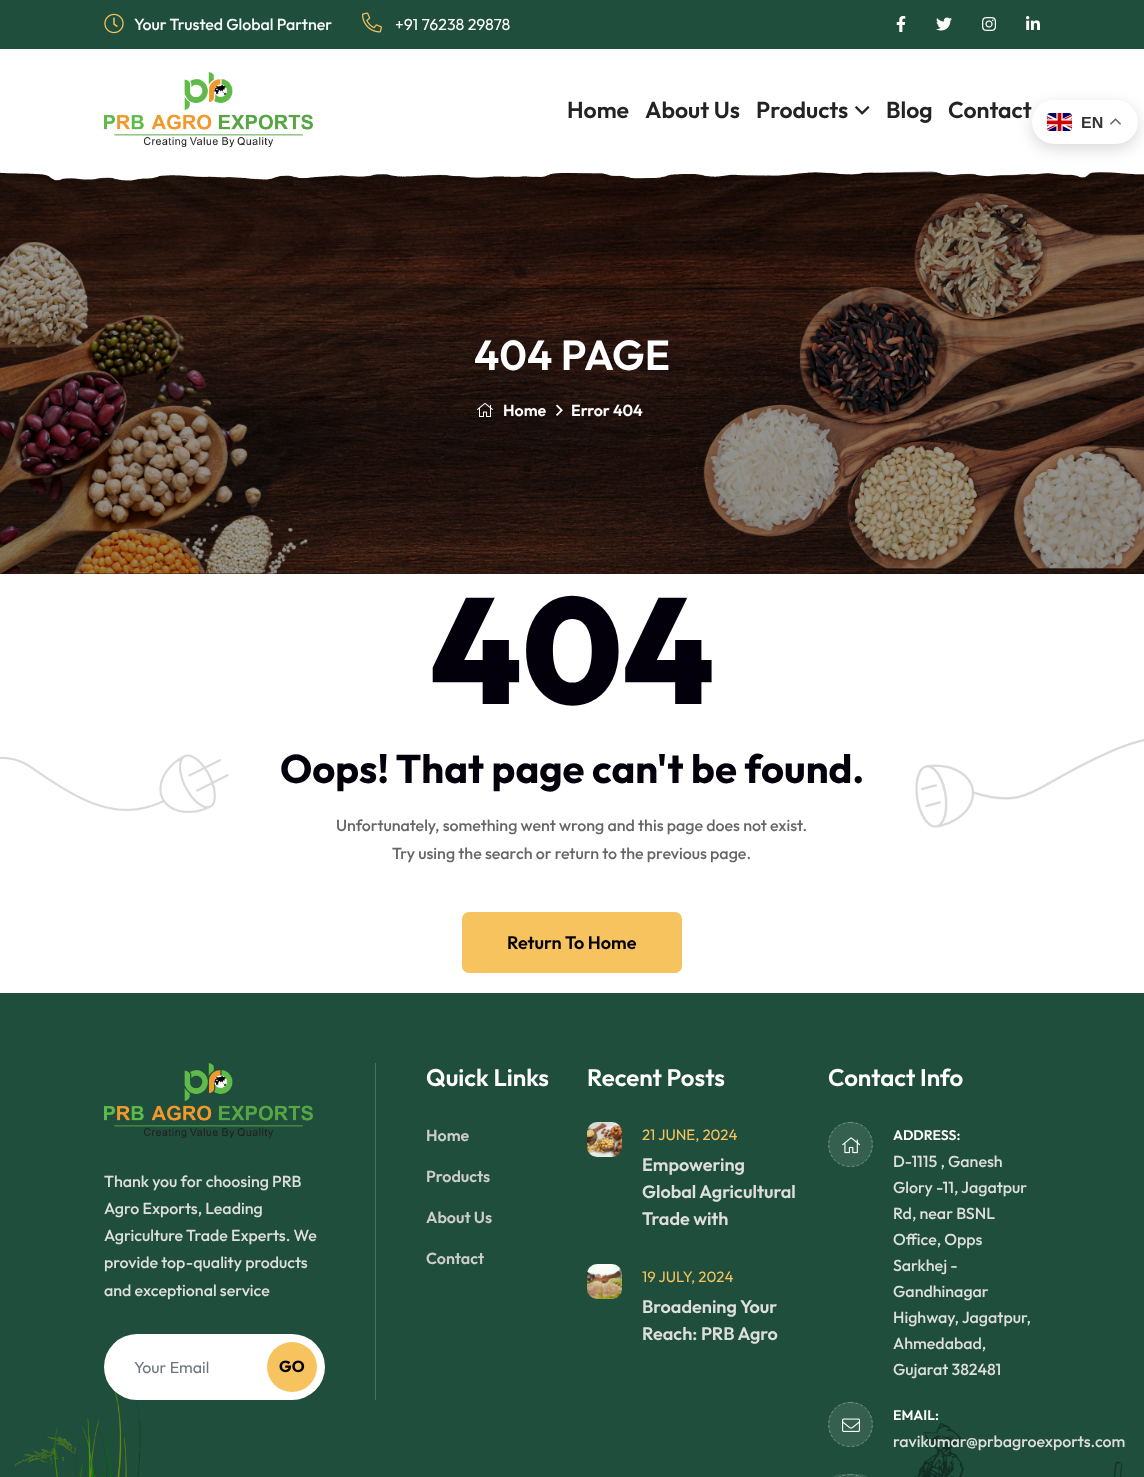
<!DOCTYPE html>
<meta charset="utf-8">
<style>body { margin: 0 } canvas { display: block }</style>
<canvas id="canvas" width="1144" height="1477"></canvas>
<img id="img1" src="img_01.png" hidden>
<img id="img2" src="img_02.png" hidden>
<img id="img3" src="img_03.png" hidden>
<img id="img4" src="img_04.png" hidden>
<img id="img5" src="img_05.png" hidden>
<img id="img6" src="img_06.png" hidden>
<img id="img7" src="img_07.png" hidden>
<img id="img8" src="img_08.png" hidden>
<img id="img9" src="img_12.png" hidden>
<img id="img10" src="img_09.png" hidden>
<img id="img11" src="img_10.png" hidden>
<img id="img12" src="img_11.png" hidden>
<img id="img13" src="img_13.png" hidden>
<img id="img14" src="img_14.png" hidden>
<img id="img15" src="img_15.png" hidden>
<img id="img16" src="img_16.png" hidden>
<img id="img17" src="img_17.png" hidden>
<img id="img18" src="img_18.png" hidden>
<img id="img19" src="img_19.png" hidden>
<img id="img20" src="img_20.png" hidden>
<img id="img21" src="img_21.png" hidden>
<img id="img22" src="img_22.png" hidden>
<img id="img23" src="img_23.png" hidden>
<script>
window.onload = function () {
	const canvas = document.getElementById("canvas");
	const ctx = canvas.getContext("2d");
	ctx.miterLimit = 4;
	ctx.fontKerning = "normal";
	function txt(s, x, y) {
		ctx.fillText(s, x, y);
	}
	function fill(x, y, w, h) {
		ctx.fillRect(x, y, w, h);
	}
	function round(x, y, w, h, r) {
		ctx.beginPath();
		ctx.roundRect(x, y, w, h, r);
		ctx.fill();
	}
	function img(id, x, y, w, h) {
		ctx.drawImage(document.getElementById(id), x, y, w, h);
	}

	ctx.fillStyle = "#FFFFFF";
	fill(0, 0, 1144, 1477);
	ctx.fillStyle = "#1F4E3D";
	fill(0, 0, 1144, 49);
	img("img1", 104, 13, 20, 21);
	img("img2", 362, 12, 20, 21);
	img("img3", 896, 16, 10, 16);
	img("img4", 936, 17, 16, 14);
	img("img5", 982, 17, 15, 14);
	img("img6", 1026, 16, 14, 14);
	img("img7", 104, 72, 209, 75);
	img("img8", 855, 106, 15, 9);
	img("img9", 0, 171, 1144, 403);
	img("img10", 0, 170, 1144, 11);
	ctx.fillStyle = "rgba(0, 0, 0, 0.15)";
	ctx.filter = "blur(7.5px)";
	ctx.beginPath();
	ctx.roundRect(1032, 105, 106, 44, 22);
	ctx.fill();
	ctx.filter = "none";
	ctx.fillStyle = "#FFFFFF";
	round(1032, 100, 106, 44, 22);
	img("img11", 1047, 113, 25, 18);
	img("img12", 1110, 118, 11, 7);
	img("img13", 477, 403, 16, 14);
	img("img14", 556, 404, 7, 12);
	img("img15", 0, 754, 229, 59);
	ctx.fillStyle = "#F7C35F";
	round(462, 912, 220, 61, 7);
	img("img16", 915, 738, 229, 90);
	ctx.fillStyle = "#1F4E3D";
	fill(0, 993, 1144, 484);
	img("img17", 14, 1390, 127, 87);
	ctx.fillStyle = "#4C7164";
	fill(375, 1063, 1, 337);
	img("img18", 104, 1063, 209, 75);
	ctx.fillStyle = "#FFFFFF";
	round(104, 1334, 221, 66, 33);
	ctx.fillStyle = "#F7C35F";
	ctx.beginPath();
	ctx.arc(292, 1367, 25, 0, Math.PI * 2);
	ctx.fill();
	img("img19", 587, 1122, 35, 35);
	img("img20", 587, 1264, 35, 35);
	ctx.fillStyle = "#356050";
	ctx.beginPath();
	ctx.arc(850.5, 1144.5, 22.5, 0, Math.PI * 2);
	ctx.fill();
	ctx.beginPath();
	ctx.moveTo(850.5, 1122.5);
	ctx.bezierCurveTo(879.5, 1122.5, 879.5, 1166.5, 850.5, 1166.5);
	ctx.bezierCurveTo(821.5, 1166.5, 821.5, 1122.5, 850.5, 1122.5);
	ctx.closePath();
	ctx.strokeStyle = "rgba(255, 255, 255, 0.3)";
	ctx.setLineDash([3, 2]);
	ctx.stroke();
	img("img21", 842, 1137, 19, 17);
	ctx.beginPath();
	ctx.arc(850.5, 1424.5, 22.5, 0, Math.PI * 2);
	ctx.fill();
	ctx.beginPath();
	ctx.moveTo(850.5, 1402.5);
	ctx.bezierCurveTo(879.5, 1402.5, 879.5, 1446.5, 850.5, 1446.5);
	ctx.bezierCurveTo(821.5, 1446.5, 821.5, 1402.5, 850.5, 1402.5);
	ctx.closePath();
	ctx.stroke();
	img("img22", 842, 1418, 18, 14);
	round(828, 1474, 45, 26, 22.5);
	ctx.beginPath();
	ctx.moveTo(850.5, 1474.5);
	ctx.bezierCurveTo(879.5, 1474.5, 879.5, 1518.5, 850.5, 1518.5);
	ctx.bezierCurveTo(821.5, 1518.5, 821.5, 1474.5, 850.5, 1474.5);
	ctx.closePath();
	ctx.stroke();
	img("img23", 913, 1423, 210, 54);
	ctx.font = "500 16px Outfit";
	ctx.fillStyle = "#F8F9FA";
	txt("Your Trusted Global Partner", 134, 30);
	ctx.font = "16px Outfit";
	ctx.fillStyle = "#FFFFFF";
	txt("+91 76238 29878", 395, 30);
	ctx.font = "600 23px Outfit";
	ctx.fillStyle = "#232323";
	txt("Home", 567, 118);
	txt("About Us", 645, 118);
	txt("Products", 756, 118);
	txt("Blog", 886, 118);
	txt("Contact", 948, 118);
	ctx.font = "bold 16px Liberation Sans";
	ctx.fillStyle = "#333333";
	txt("EN", 1081, 128);
	ctx.font = "600 42px Outfit";
	ctx.fillStyle = "#FFFFFF";
	txt("404 PAGE", 474, 370);
	ctx.font = "600 16px Outfit";
	txt("Home", 503, 416);
	txt("Error 404", 571, 416);
	ctx.font = "800 150px Outfit";
	ctx.fillStyle = "#04000B";
	txt("404", 430, 704);
	ctx.font = "bold 40px Outfit";
	txt("Oops! That page can't be found.", 280, 783);
	ctx.font = "500 16px Outfit";
	ctx.fillStyle = "#666666";
	txt("Unfortunately, something went wrong and this page does not exist.", 336, 831);
	txt("Try using the search or return to the previous page.", 392, 859);
	ctx.font = "600 18px Outfit";
	ctx.fillStyle = "#04000B";
	txt("Return To Home", 507, 949);
	ctx.font = "500 16px Outfit";
	ctx.fillStyle = "#DEDEDE";
	txt("Thank you for choosing PRB", 104, 1187);
	txt("Agro Exports, Leading", 104, 1214);
	txt("Agriculture Trade Experts. We", 104, 1241);
	txt("provide top-quality products", 104, 1268);
	txt("and exceptional service", 104, 1296);
	ctx.font = "16px Outfit";
	ctx.fillStyle = "#6C757D";
	txt("Your Email", 134, 1373);
	ctx.font = "bold 16px Outfit";
	ctx.fillStyle = "#04000B";
	txt("GO", 279, 1372);
	ctx.font = "600 24px Outfit";
	ctx.fillStyle = "#FFFFFF";
	txt("Quick Links", 426, 1086);
	ctx.font = "600 16px Outfit";
	ctx.fillStyle = "#CCCCCC";
	txt("Home", 426, 1141);
	txt("Products", 426, 1182);
	txt("About Us", 426, 1223);
	txt("Contact", 426, 1264);
	ctx.font = "600 24px Outfit";
	ctx.fillStyle = "#FFFFFF";
	txt("Recent Posts", 587, 1086);
	ctx.font = "15px Outfit";
	ctx.fillStyle = "#F7C35F";
	txt("21 JUNE, 2024", 642, 1140);
	ctx.font = "600 18px Outfit";
	ctx.fillStyle = "#DEDEDE";
	txt("Empowering", 642, 1171);
	txt("Global Agricultural", 642, 1198);
	txt("Trade with", 642, 1225);
	ctx.font = "15px Outfit";
	ctx.fillStyle = "#F7C35F";
	txt("19 JULY, 2024", 642, 1282);
	ctx.font = "600 18px Outfit";
	ctx.fillStyle = "#DEDEDE";
	txt("Broadening Your", 642, 1313);
	txt("Reach: PRB Agro", 642, 1340);
	ctx.font = "600 24px Outfit";
	ctx.fillStyle = "#FFFFFF";
	txt("Contact Info", 828, 1086);
	ctx.font = "600 14px Outfit";
	txt("ADDRESS:", 893, 1140);
	ctx.font = "500 16px Outfit";
	ctx.fillStyle = "#DEDEDE";
	txt("D-1115 , Ganesh", 893, 1167);
	txt("Glory -11, Jagatpur", 893, 1193);
	txt("Rd, near BSNL", 893, 1219);
	txt("Office, Opps", 893, 1245);
	txt("Sarkhej -", 893, 1271);
	txt("Gandhinagar", 893, 1297);
	txt("Highway, Jagatpur,", 893, 1323);
	txt("Ahmedabad,", 893, 1349);
	txt("Gujarat 382481", 893, 1375);
	ctx.font = "600 14px Outfit";
	ctx.fillStyle = "#FFFFFF";
	txt("EMAIL:", 893, 1420);
	ctx.font = "500 16px Outfit";
	ctx.fillStyle = "#DEDEDE";
	txt("ravikumar@prbagroexports.com", 893, 1447);
};
</script>
